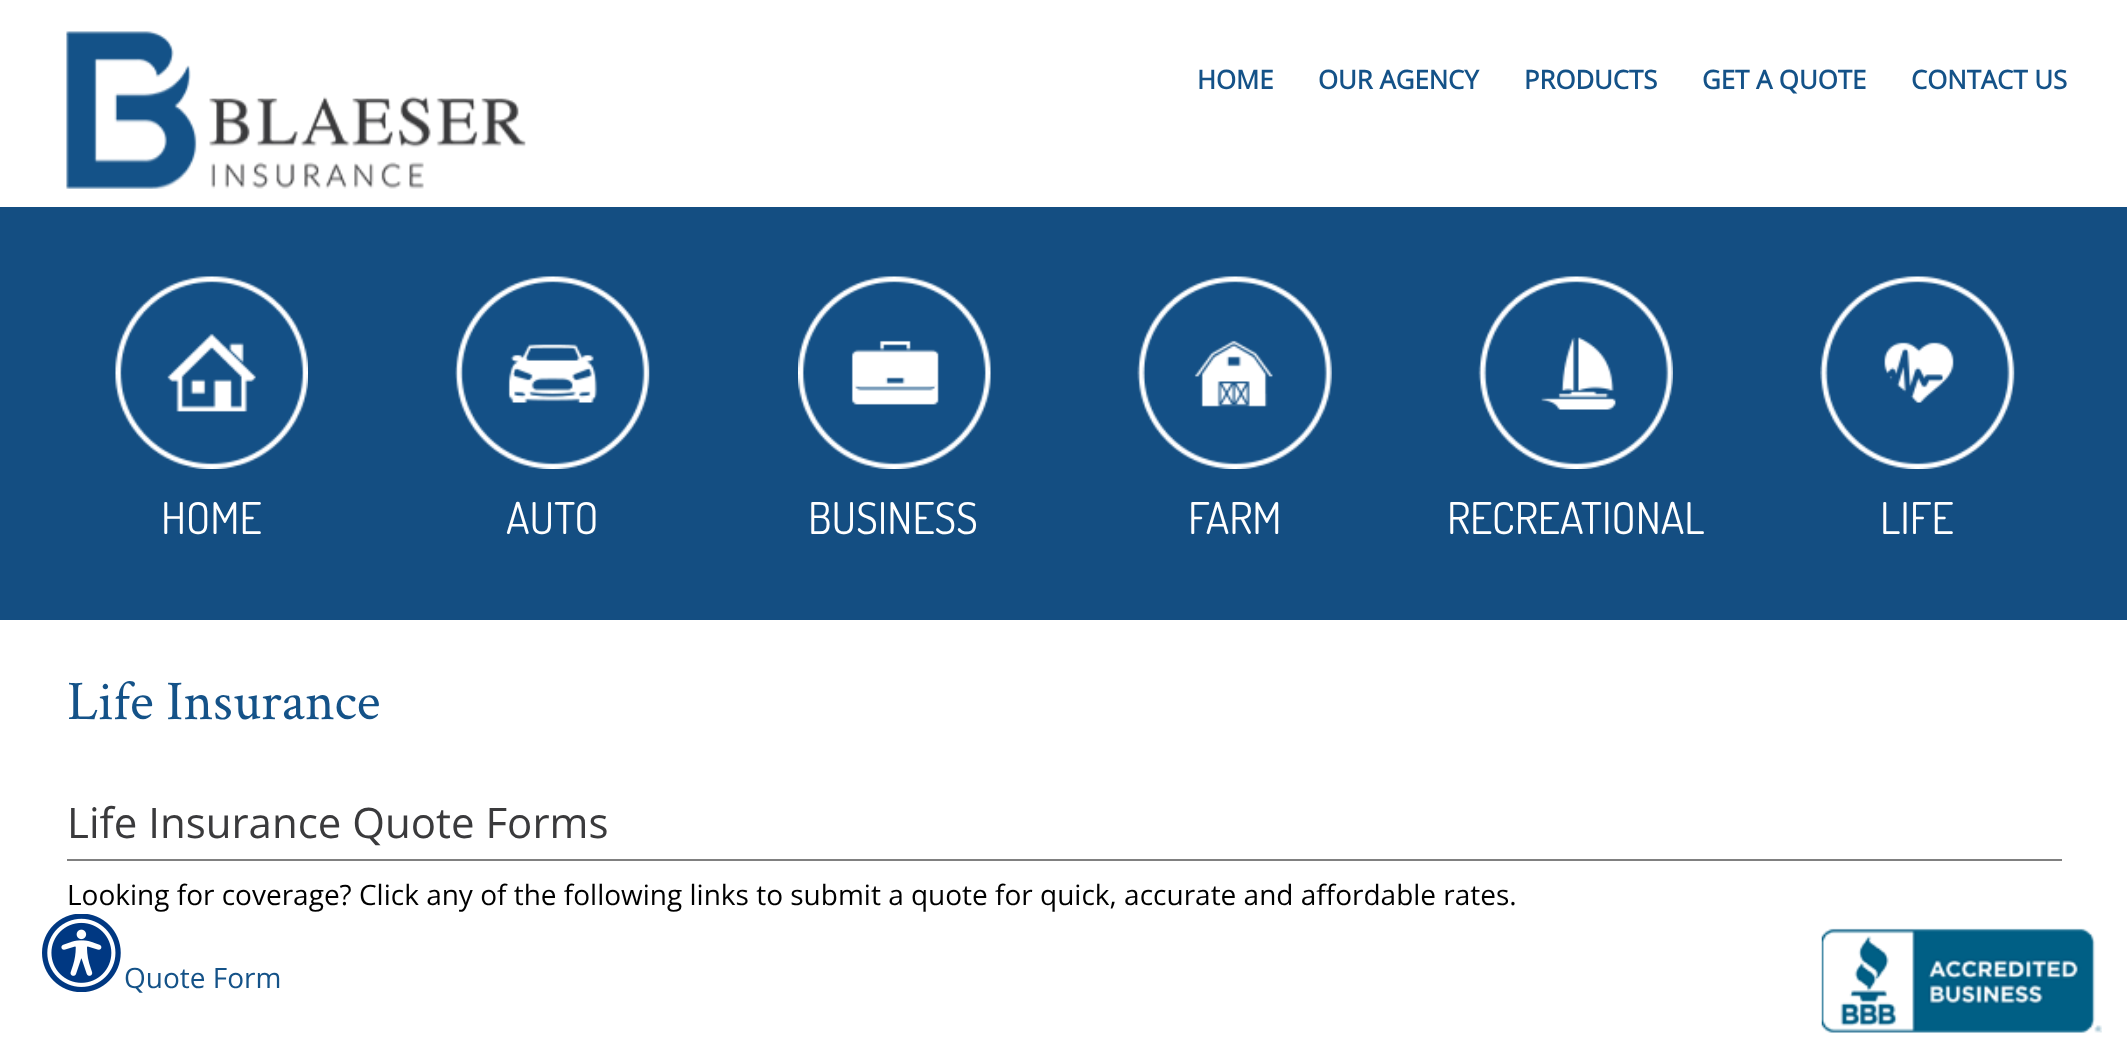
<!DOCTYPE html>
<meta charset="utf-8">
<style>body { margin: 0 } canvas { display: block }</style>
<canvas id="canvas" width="2127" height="1042"></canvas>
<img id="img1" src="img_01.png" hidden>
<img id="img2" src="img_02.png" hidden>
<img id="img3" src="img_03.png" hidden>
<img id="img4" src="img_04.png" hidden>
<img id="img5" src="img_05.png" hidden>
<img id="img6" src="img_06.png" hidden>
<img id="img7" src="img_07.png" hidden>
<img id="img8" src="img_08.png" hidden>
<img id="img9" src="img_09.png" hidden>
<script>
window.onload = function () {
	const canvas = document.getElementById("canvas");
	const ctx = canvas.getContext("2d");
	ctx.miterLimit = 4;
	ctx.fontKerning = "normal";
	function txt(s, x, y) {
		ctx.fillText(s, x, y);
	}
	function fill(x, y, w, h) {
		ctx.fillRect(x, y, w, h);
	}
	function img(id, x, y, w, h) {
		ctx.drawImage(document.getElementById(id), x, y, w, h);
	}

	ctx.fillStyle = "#FFFFFF";
	fill(0, 0, 2127, 1042);
	img("img1", 66, 31, 460, 158);
	ctx.fillStyle = "#144E82";
	fill(0, 207, 2127, 413);
	img("img2", 115, 276, 193, 193);
	img("img3", 455, 276, 195, 193);
	img("img4", 798, 276, 193, 193);
	img("img5", 1137, 276, 195, 193);
	img("img6", 1478, 276, 195, 193);
	img("img7", 1820, 276, 195, 193);
	ctx.fillStyle = "#808080";
	fill(67, 859, 1995, 2);
	img("img8", 42, 914, 79, 78);
	img("img9", 1821, 928, 281, 105);
	ctx.font = "bold 25.75px Open Sans";
	ctx.fillStyle = "#145288";
	txt("HOME", 1197, 89);
	txt("OUR AGENCY", 1318, 89);
	txt("PRODUCTS", 1524, 89);
	txt("GET A QUOTE", 1702, 89);
	txt("CONTACT US", 1911, 89);
	ctx.font = "43.75px Dosis";
	ctx.fillStyle = "#FFFFFF";
	txt("HOME", 161, 534);
	txt("AUTO", 506, 534);
	txt("BUSINESS", 808, 534);
	txt("FARM", 1188, 534);
	txt("RECREATIONAL", 1447, 534);
	txt("LIFE", 1880, 534);
	ctx.font = "56px Crimson Text";
	ctx.fillStyle = "#145288";
	txt("Life Insurance", 67, 719);
	ctx.font = "42px Open Sans";
	ctx.fillStyle = "#3A3A3C";
	txt("Life Insurance Quote Forms", 67, 838);
	ctx.font = "28px Open Sans";
	ctx.fillStyle = "#000000";
	txt("Looking for coverage? Click any of the following links to submit a quote for quick, accurate and affordable rates.", 67, 905);
	ctx.fillStyle = "#145288";
	txt("Quote Form", 124, 988);
};
</script>
